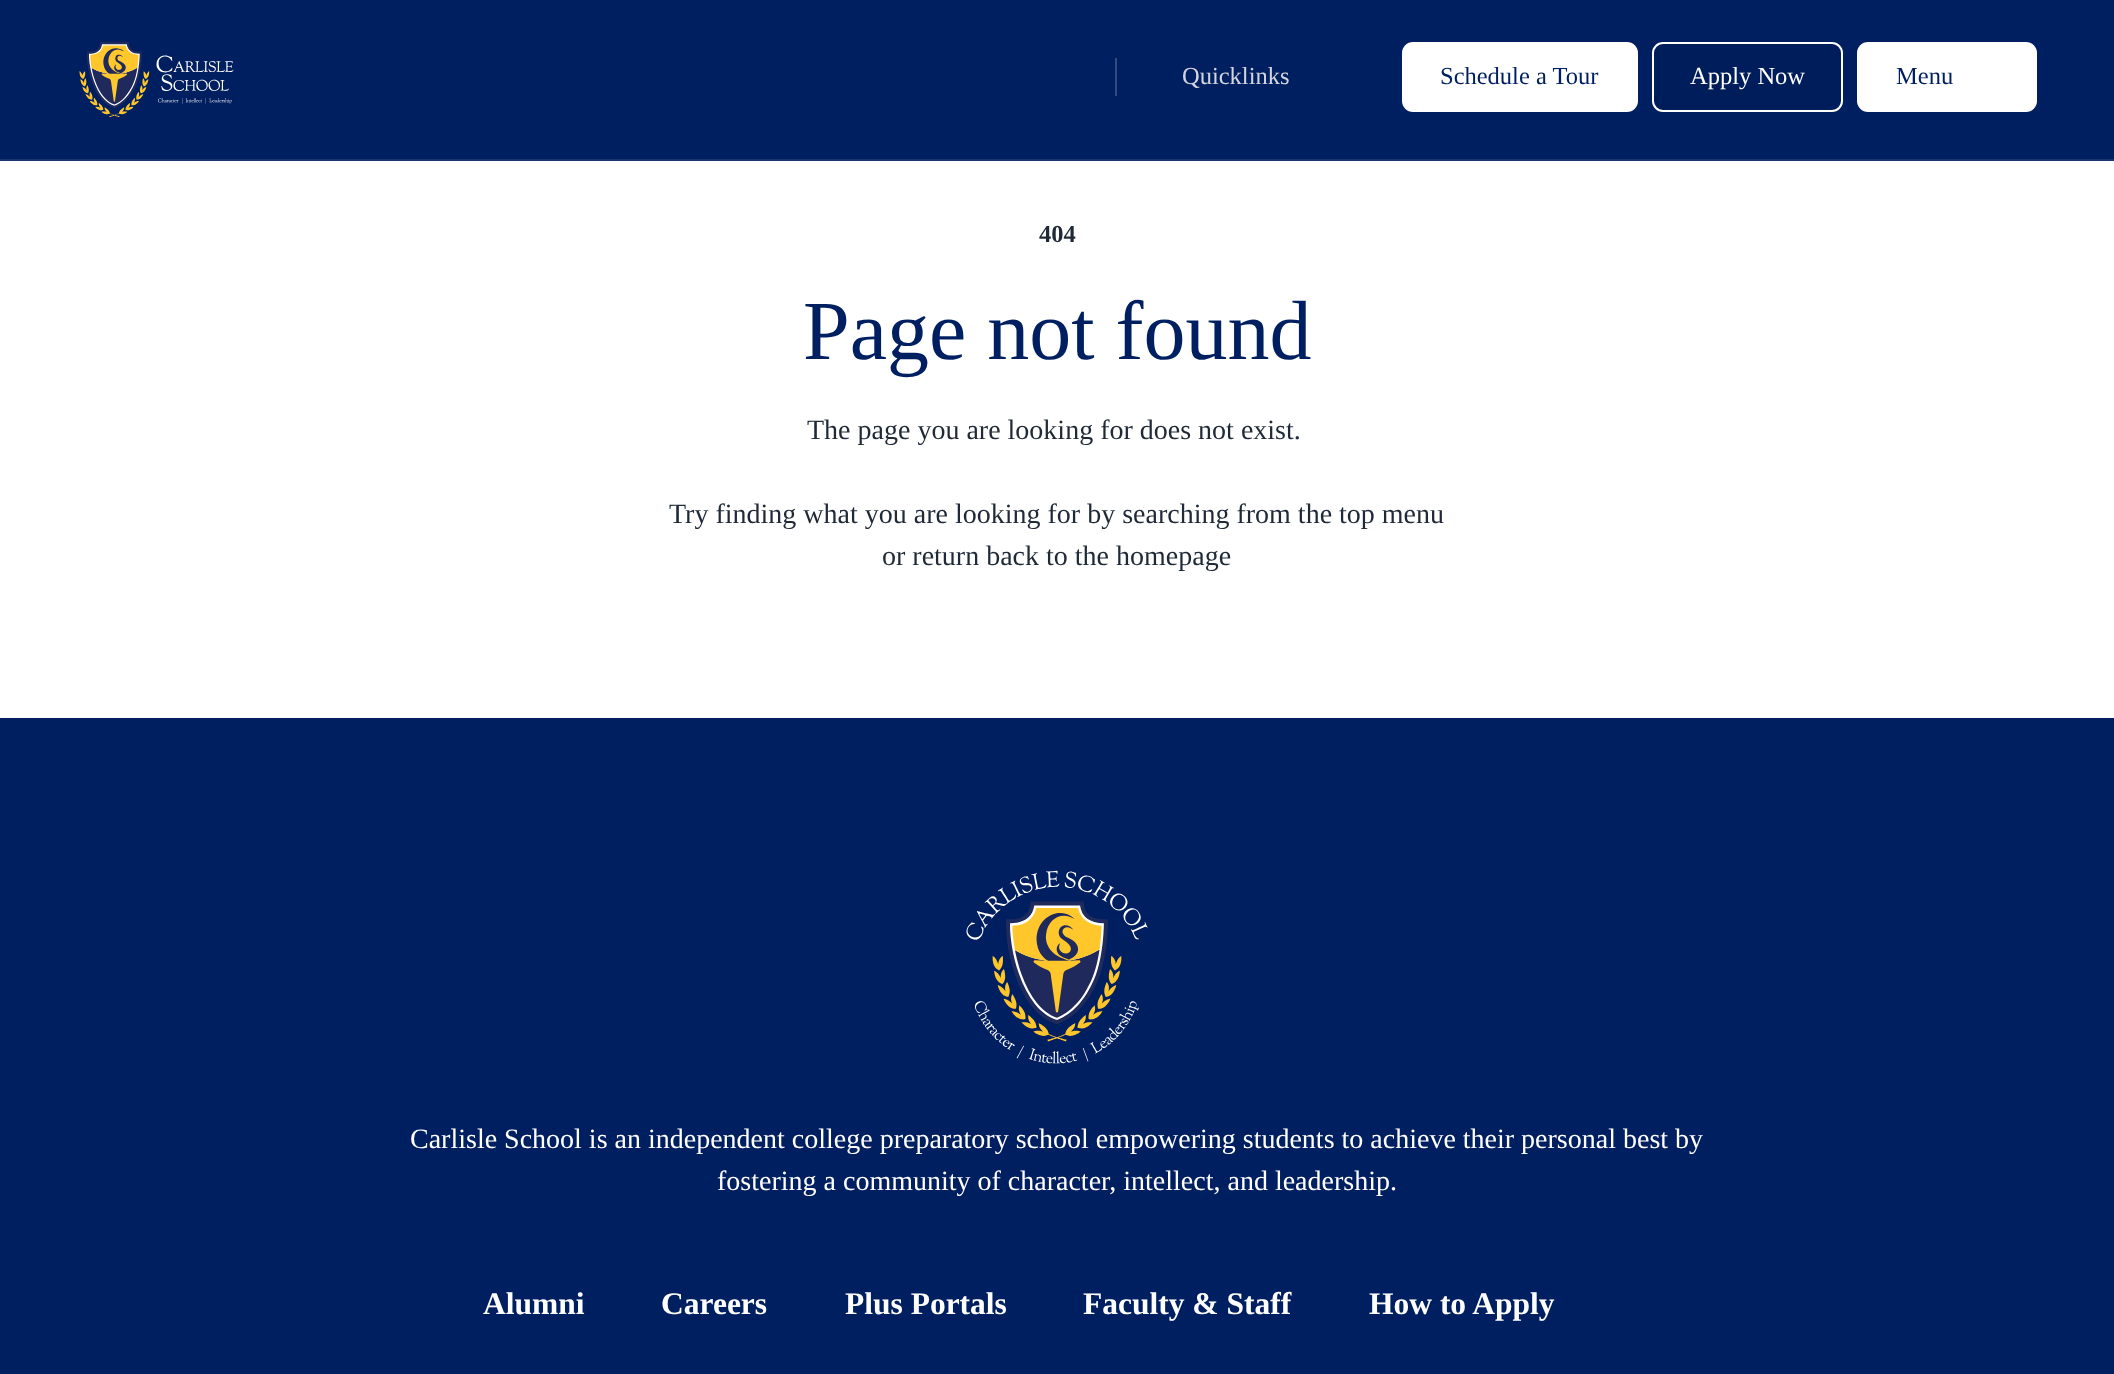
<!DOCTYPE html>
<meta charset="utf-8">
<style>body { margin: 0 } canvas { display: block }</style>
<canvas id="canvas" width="2114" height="1374"></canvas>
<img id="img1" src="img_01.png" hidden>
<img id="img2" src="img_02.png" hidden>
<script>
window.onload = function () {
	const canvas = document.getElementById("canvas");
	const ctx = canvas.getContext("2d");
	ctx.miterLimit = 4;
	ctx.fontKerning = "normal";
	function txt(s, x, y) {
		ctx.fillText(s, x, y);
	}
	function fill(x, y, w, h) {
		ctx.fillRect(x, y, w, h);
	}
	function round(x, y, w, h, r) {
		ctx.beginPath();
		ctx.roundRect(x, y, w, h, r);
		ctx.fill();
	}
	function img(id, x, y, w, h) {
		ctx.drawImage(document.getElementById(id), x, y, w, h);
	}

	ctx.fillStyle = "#FFFFFF";
	fill(0, 0, 2114, 1374);
	ctx.fillStyle = "#001F60";
	fill(0, 0, 2114, 159);
	ctx.fillStyle = "#1A3570";
	fill(0, 159, 2114, 2);
	img("img1", 79, 42, 155, 75);
	ctx.fillStyle = "#334C80";
	fill(1115, 58, 2, 38);
	ctx.fillStyle = "#FFFFFF";
	round(1402, 42, 236, 70, 11);
	ctx.fillStyle = "#001D5B";
	ctx.beginPath();
	ctx.roundRect(1653, 43, 189, 68, 10);
	ctx.fill();
	ctx.strokeStyle = "#FFFFFF";
	ctx.lineWidth = 2;
	ctx.stroke();
	ctx.fillStyle = "#FFFFFF";
	round(1857, 42, 180, 70, 11);
	ctx.fillStyle = "#001F60";
	fill(0, 718, 2114, 656);
	img("img2", 966, 870, 182, 194);
	ctx.font = "24.5px Liberation Serif";
	ctx.fillStyle = "#D2D6DC";
	txt("Quicklinks", 1182, 84);
	ctx.fillStyle = "#001F60";
	txt("Schedule a Tour", 1440, 84);
	ctx.fillStyle = "#FFFFFF";
	txt("Apply Now", 1690, 84);
	ctx.fillStyle = "#001F60";
	txt("Menu", 1896, 84);
	ctx.font = "bold 24.5px Liberation Serif";
	ctx.fillStyle = "#1F2937";
	txt("404", 1039, 242);
	ctx.font = "84px Liberation Serif";
	ctx.fillStyle = "#001F60";
	txt("Page not found", 803, 359);
	ctx.font = "28px Liberation Serif";
	ctx.fillStyle = "#1F2937";
	txt("The page you are looking for does not exist.", 807, 439);
	txt("Try finding what you are looking for by searching from the top menu", 669, 523);
	txt("or return back to the homepage", 882, 565);
	ctx.fillStyle = "#FFFFFF";
	txt("Carlisle School is an independent college preparatory school empowering students to achieve their personal best by", 410, 1148);
	txt("fostering a community of character, intellect, and leadership.", 717, 1190);
	ctx.font = "bold 31.5px Liberation Serif";
	txt("Alumni", 483, 1314);
	txt("Careers", 661, 1314);
	txt("Plus Portals", 845, 1314);
	txt("Faculty & Staff", 1083, 1314);
	txt("How to Apply", 1369, 1314);
};
</script>
